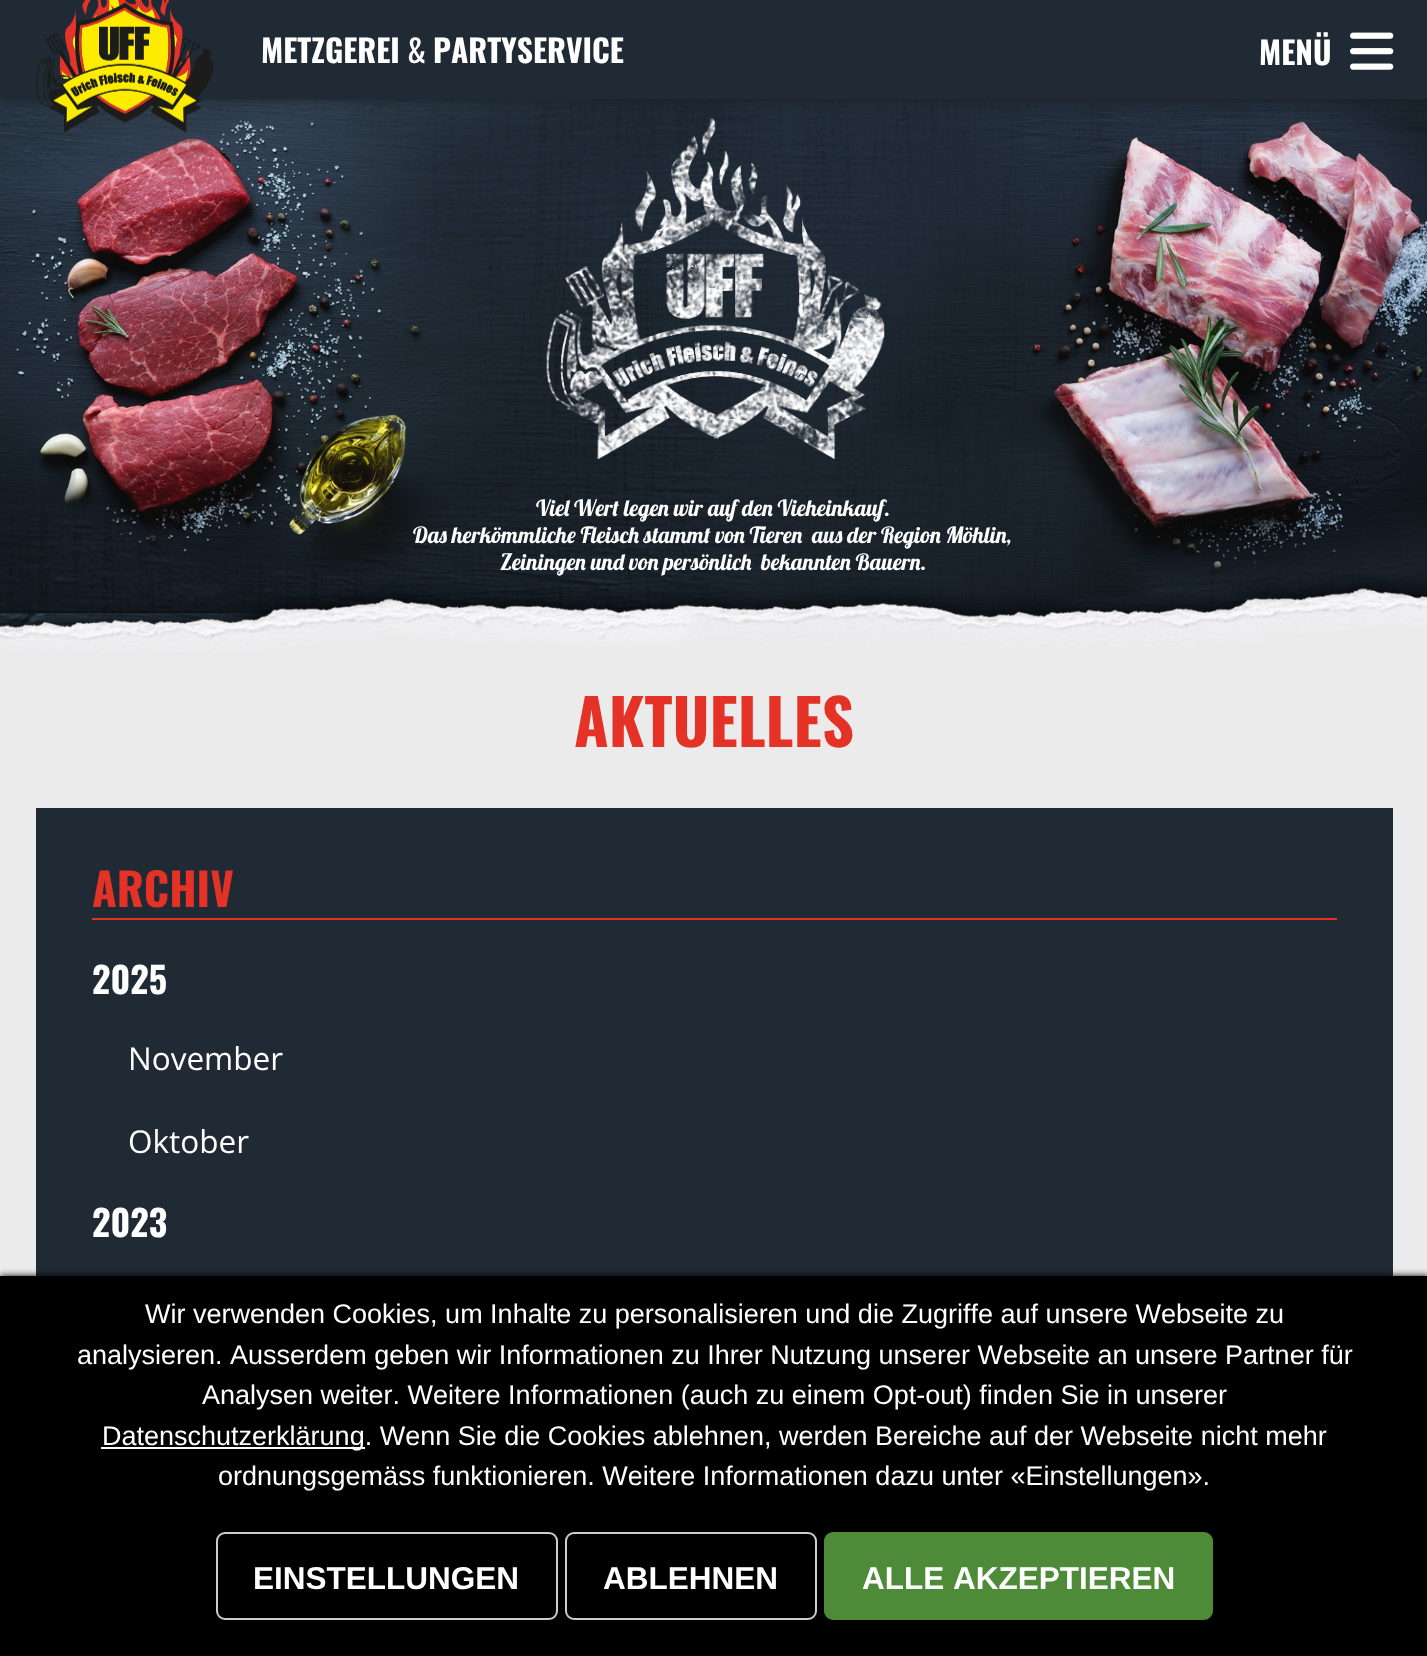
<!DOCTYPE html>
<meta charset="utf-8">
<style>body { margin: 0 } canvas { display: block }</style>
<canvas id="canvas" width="1427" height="1656"></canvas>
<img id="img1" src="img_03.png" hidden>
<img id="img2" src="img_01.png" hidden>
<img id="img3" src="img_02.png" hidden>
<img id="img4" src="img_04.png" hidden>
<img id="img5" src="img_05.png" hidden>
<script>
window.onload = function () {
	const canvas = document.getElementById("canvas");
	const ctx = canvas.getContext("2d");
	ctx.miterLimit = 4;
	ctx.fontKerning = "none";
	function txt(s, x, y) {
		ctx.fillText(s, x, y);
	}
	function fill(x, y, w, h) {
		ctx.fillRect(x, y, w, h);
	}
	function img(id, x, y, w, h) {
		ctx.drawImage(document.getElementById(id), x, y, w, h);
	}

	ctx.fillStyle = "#EBEBEB";
	fill(0, 0, 1427, 1656);
	img("img1", 0, 99, 1427, 530);
	ctx.fillStyle = "#1A1F25";
	ctx.filter = "blur(5.5px)";
	ctx.beginPath();
	ctx.rect(0, 0, 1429, 99);
	ctx.fill();
	ctx.filter = "none";
	ctx.fillStyle = "#202A34";
	fill(0, 0, 1427, 99);
	img("img2", 36, 0, 178, 133);
	img("img3", 1350, 32, 44, 38);
	img("img4", 546, 117, 339, 342);
	img("img5", 0, 574, 1427, 78);
	fill(36, 808, 1357, 468);
	ctx.fillStyle = "#E43226";
	fill(92, 918, 1245, 2);
	ctx.fillStyle = "#000000";
	ctx.filter = "blur(3.5px)";
	ctx.beginPath();
	ctx.rect(0, 1276, 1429, 380);
	ctx.fill();
	ctx.filter = "none";
	fill(0, 1276, 1427, 380);
	ctx.fillStyle = "#FFFFFF";
	fill(101, 1447, 264, 2);
	ctx.beginPath();
	ctx.roundRect(217, 1533, 340, 86, 8);
	ctx.strokeStyle = "#CDCDCD";
	ctx.lineWidth = 2;
	ctx.stroke();
	ctx.beginPath();
	ctx.roundRect(566, 1533, 250, 86, 8);
	ctx.stroke();
	ctx.fillStyle = "#4E8B38";
	ctx.beginPath();
	ctx.roundRect(825, 1533, 387, 86, 8);
	ctx.fill();
	ctx.strokeStyle = "#4E8B38";
	ctx.stroke();
	ctx.font = "bold 31.5px Oswald";
	ctx.fillStyle = "#FFFFFF";
	txt("METZGEREI", 261, 63);
	ctx.font = "31.5px Oswald";
	txt("&", 407, 63);
	ctx.font = "bold 31.5px Oswald";
	txt("PARTYSERVICE", 433, 63);
	txt("MENÜ", 1259, 65);
	ctx.font = "22.5px Lobster";
	txt("Viel Wert legen wir auf den Vieheinkauf.", 536, 516);
	txt("Das herkömmliche Fleisch stammt von Tieren", 413, 543);
	txt("aus der Region Möhlin,", 812, 543);
	txt("Zeiningen und von persönlich", 500, 570);
	txt("bekannten Bauern.", 761, 570);
	ctx.font = "bold 63px Oswald";
	ctx.fillStyle = "#E43226";
	txt("AKTUELLES", 574, 747);
	ctx.font = "bold 45px Oswald";
	txt("ARCHIV", 92, 907);
	ctx.font = "bold 36px Oswald";
	ctx.fillStyle = "#FFFFFF";
	txt("2025", 92, 994);
	ctx.font = "31.5px Open Sans";
	txt("November", 128, 1070);
	txt("Oktober", 128, 1153);
	ctx.font = "bold 36px Oswald";
	txt("2023", 92, 1237);
	ctx.font = "27px Liberation Sans";
	txt("Wir verwenden Cookies, um Inhalte zu personalisieren und die Zugriffe auf unsere Webseite zu", 145, 1323);
	txt("analysieren. Ausserdem geben wir Informationen zu Ihrer Nutzung unserer Webseite an unsere Partner für", 77, 1364);
	txt("Analysen weiter. Weitere Informationen (auch zu einem Opt-out) finden Sie in unserer", 202, 1404);
	txt("Datenschutzerklärung. Wenn Sie die Cookies ablehnen, werden Bereiche auf der Webseite nicht mehr", 102, 1445);
	txt("ordnungsgemäss funktionieren. Weitere Informationen dazu unter «Einstellungen».", 218, 1485);
	ctx.font = "bold 31.5px Liberation Sans";
	txt("EINSTELLUNGEN", 253, 1589);
	txt("ABLEHNEN", 603, 1589);
	txt("ALLE AKZEPTIEREN", 862, 1589);
};
</script>
